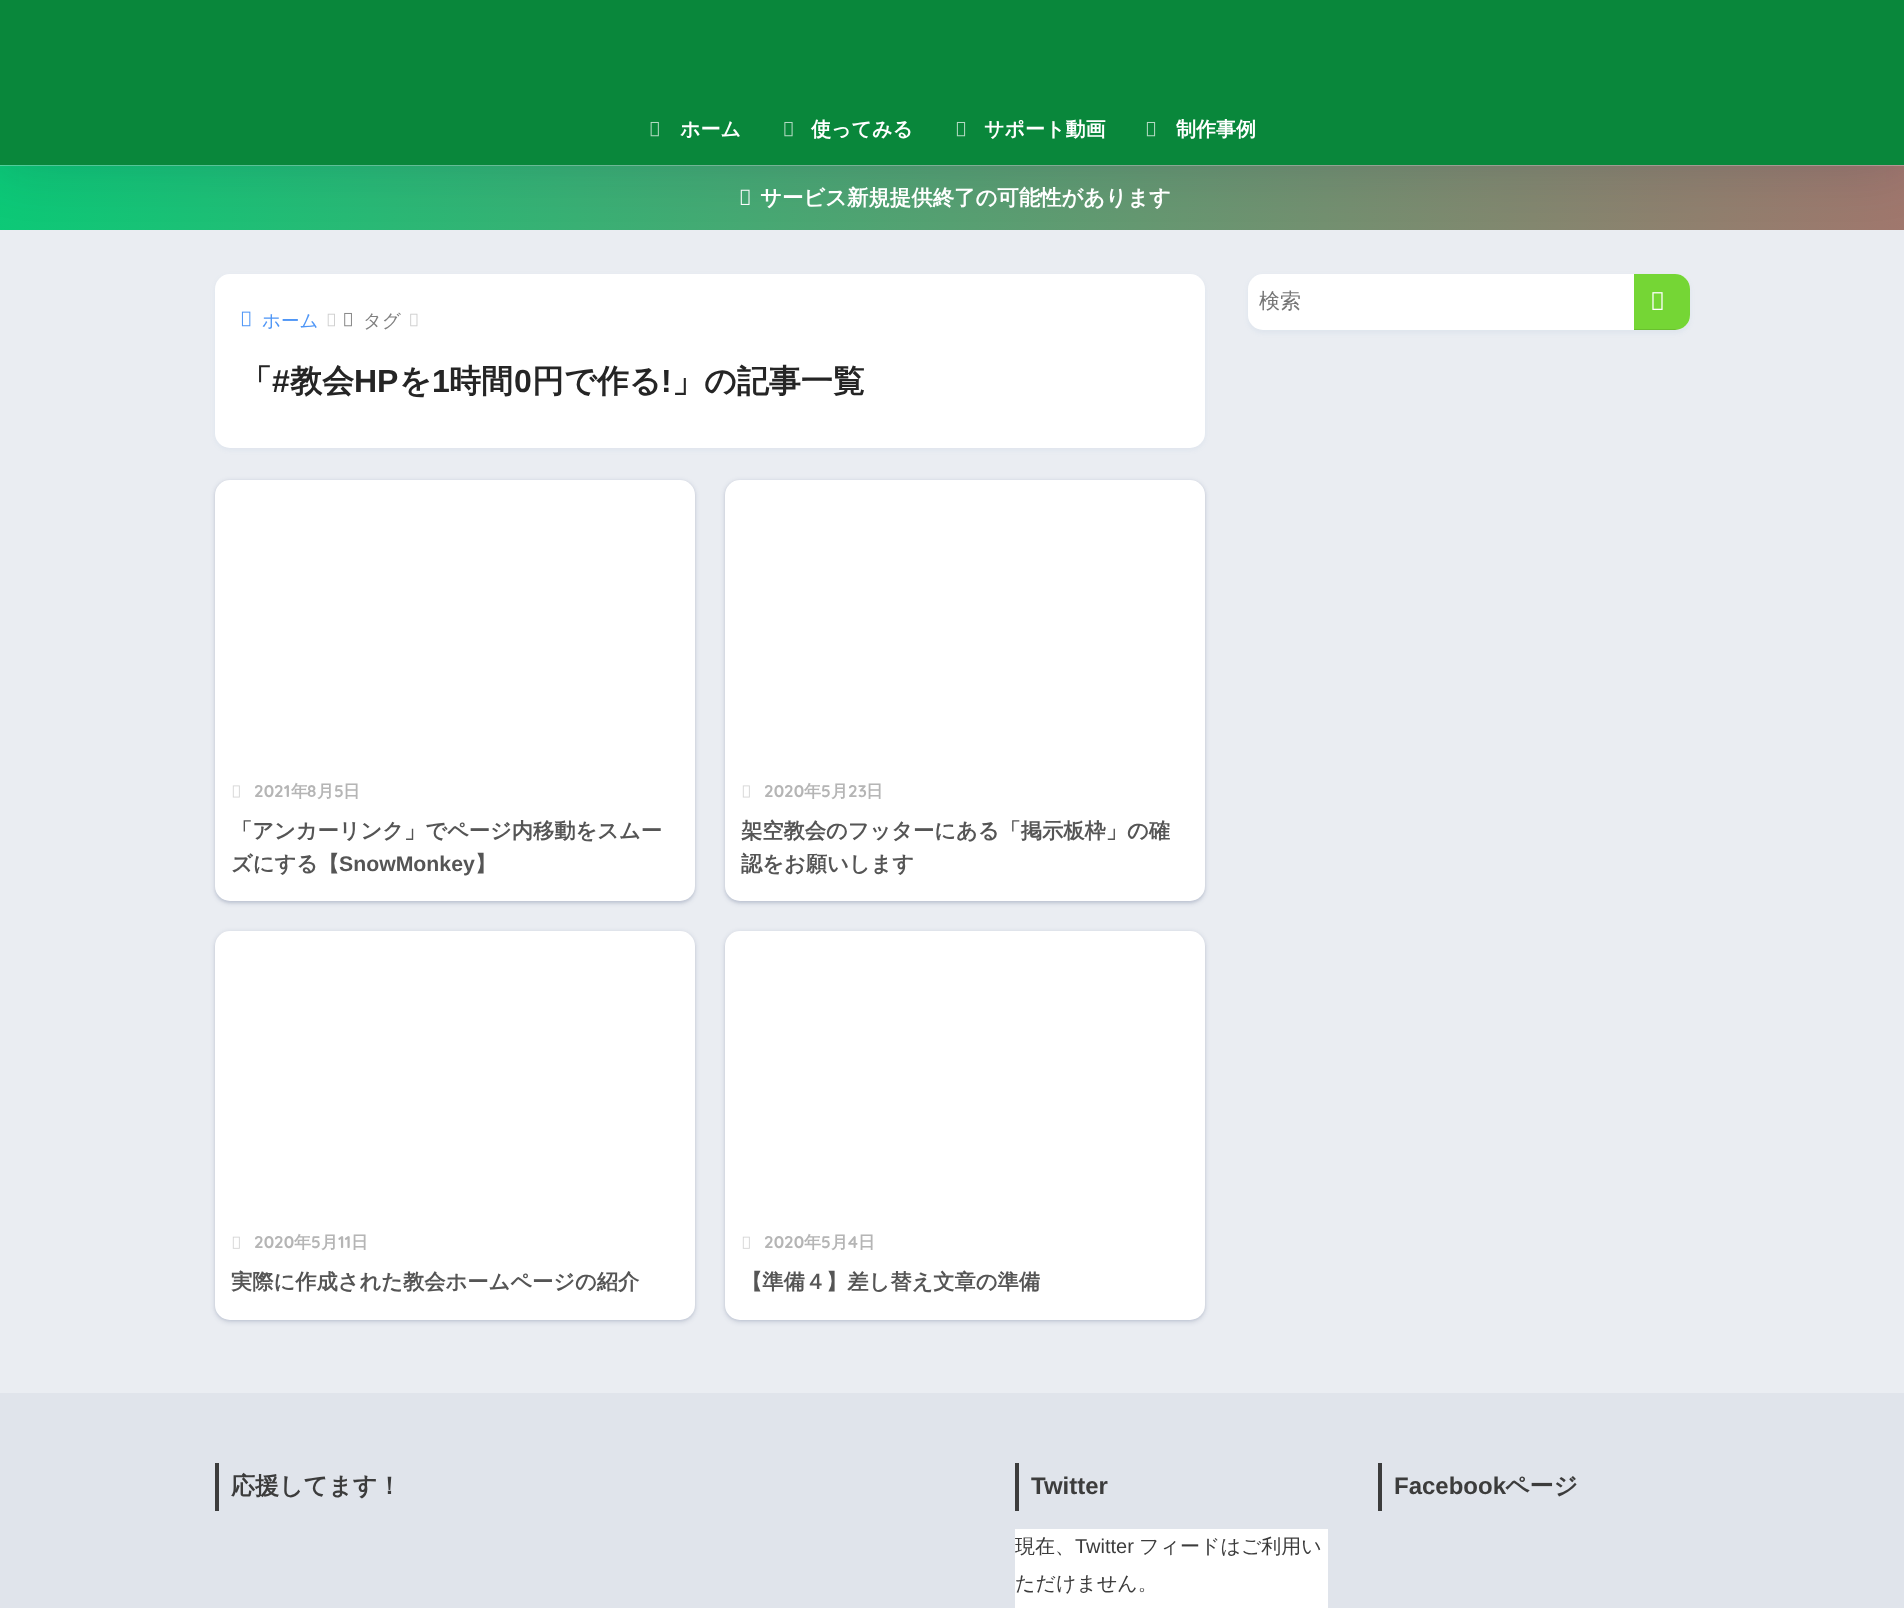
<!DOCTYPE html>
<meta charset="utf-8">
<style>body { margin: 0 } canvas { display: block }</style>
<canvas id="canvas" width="1904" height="1608"></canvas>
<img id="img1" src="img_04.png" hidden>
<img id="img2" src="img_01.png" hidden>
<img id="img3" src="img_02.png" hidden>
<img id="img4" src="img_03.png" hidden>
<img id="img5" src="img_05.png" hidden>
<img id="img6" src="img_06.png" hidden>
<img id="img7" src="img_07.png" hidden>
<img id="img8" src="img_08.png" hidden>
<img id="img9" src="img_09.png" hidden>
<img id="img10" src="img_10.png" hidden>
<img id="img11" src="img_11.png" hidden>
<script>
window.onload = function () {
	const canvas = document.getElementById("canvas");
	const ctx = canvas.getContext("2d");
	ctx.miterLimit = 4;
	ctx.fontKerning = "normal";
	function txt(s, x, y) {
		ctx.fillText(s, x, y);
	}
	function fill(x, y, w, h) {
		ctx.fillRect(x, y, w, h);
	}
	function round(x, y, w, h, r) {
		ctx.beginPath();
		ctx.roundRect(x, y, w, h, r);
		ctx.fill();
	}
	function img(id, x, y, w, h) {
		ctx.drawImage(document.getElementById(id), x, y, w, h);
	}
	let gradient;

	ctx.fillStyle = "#EAEDF2";
	fill(0, 0, 1904, 1608);
	gradient = ctx.createLinearGradient(4.5, 51, 1901, 217);
	gradient.addColorStop(0, "#55D9A0");
	gradient.addColorStop(1, "#BDA099");
	ctx.fillStyle = gradient;
	fill(0, 165, 1904, 1);
	gradient = ctx.createLinearGradient(4.5, 115, 1901, 281);
	gradient.addColorStop(0, "#0CC977");
	gradient.addColorStop(1, "#A0776D");
	ctx.fillStyle = gradient;
	fill(0, 166, 1904, 64);
	img("img1", 740, 189, 10, 16);
	ctx.fillStyle = "rgba(0, 12, 66, 0.16)";
	ctx.filter = "blur(28px)";
	ctx.beginPath();
	ctx.rect(0, 0, 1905, 165);
	ctx.fill();
	ctx.filter = "none";
	ctx.fillStyle = "#09873B";
	fill(0, 0, 1904, 165);
	img("img2", 650, 121, 9, 16);
	img("img3", 784, 121, 9, 16);
	img("img4", 956, 121, 10, 16);
	img("img4", 1146, 121, 10, 16);
	ctx.fillStyle = "rgba(67, 133, 187, 0.07)";
	ctx.filter = "blur(2.5px)";
	ctx.beginPath();
	ctx.roundRect(1248, 276, 442, 57, 15);
	ctx.fill();
	ctx.filter = "none";
	ctx.fillStyle = "#FFFFFF";
	round(1248, 274, 442, 56, 15);
	ctx.fillStyle = "#75D635";
	ctx.beginPath();
	ctx.roundRect(1634, 274, 56, 56, [0, 15, 15, 0]);
	ctx.fill();
	ctx.save();
	ctx.beginPath();
	ctx.roundRect(1248, 274, 442, 56, 15);
	ctx.clip();
	ctx.fillStyle = "rgba(0, 0, 0, 0.1)";
	fill(1634, 329, 52, 1);
	ctx.restore();
	img("img5", 1652, 292, 11, 18);
	ctx.fillStyle = "rgba(67, 133, 187, 0.07)";
	ctx.filter = "blur(2.5px)";
	ctx.beginPath();
	ctx.roundRect(215, 276, 990, 174, 15);
	ctx.fill();
	ctx.filter = "none";
	ctx.fillStyle = "#FFFFFF";
	round(215, 274, 990, 174, 15);
	img("img6", 241, 311, 10, 16);
	img("img7", 327, 313, 8, 14);
	img("img8", 344, 312, 8, 15);
	img("img9", 410, 313, 8, 14);
	ctx.fillStyle = "rgba(24, 44, 84, 0.1)";
	ctx.filter = "blur(2px)";
	ctx.beginPath();
	ctx.roundRect(214, 480, 482, 424, 16);
	ctx.fill();
	ctx.filter = "none";
	ctx.filter = "blur(1px)";
	ctx.beginPath();
	ctx.roundRect(215, 481, 480, 422, 15);
	ctx.fill();
	ctx.filter = "none";
	ctx.fillStyle = "#FFFFFF";
	round(215, 480, 480, 421, 15);
	img("img10", 232, 785, 8, 13);
	ctx.fillStyle = "rgba(24, 44, 84, 0.1)";
	ctx.filter = "blur(2px)";
	ctx.beginPath();
	ctx.roundRect(724, 480, 482, 424, 16);
	ctx.fill();
	ctx.filter = "none";
	ctx.filter = "blur(1px)";
	ctx.beginPath();
	ctx.roundRect(725, 481, 480, 422, 15);
	ctx.fill();
	ctx.filter = "none";
	ctx.fillStyle = "#FFFFFF";
	round(725, 480, 480, 421, 15);
	img("img10", 742, 785, 8, 13);
	ctx.fillStyle = "rgba(24, 44, 84, 0.1)";
	ctx.filter = "blur(2px)";
	ctx.beginPath();
	ctx.roundRect(214, 931, 482, 392, 16);
	ctx.fill();
	ctx.filter = "none";
	ctx.filter = "blur(1px)";
	ctx.beginPath();
	ctx.roundRect(215, 933, 480, 388, 15);
	ctx.fill();
	ctx.filter = "none";
	ctx.fillStyle = "#FFFFFF";
	round(215, 931, 480, 389, 15);
	img("img11", 232, 1236, 8, 13);
	ctx.fillStyle = "rgba(24, 44, 84, 0.1)";
	ctx.filter = "blur(2px)";
	ctx.beginPath();
	ctx.roundRect(724, 931, 482, 392, 16);
	ctx.fill();
	ctx.filter = "none";
	ctx.filter = "blur(1px)";
	ctx.beginPath();
	ctx.roundRect(725, 933, 480, 388, 15);
	ctx.fill();
	ctx.filter = "none";
	ctx.fillStyle = "#FFFFFF";
	round(725, 931, 480, 389, 15);
	img("img11", 742, 1236, 8, 13);
	ctx.fillStyle = "#E0E4EB";
	fill(0, 1393, 1904, 215);
	ctx.fillStyle = "#3C3C3C";
	fill(215, 1463, 4, 48);
	fill(1015, 1463, 4, 48);
	ctx.fillStyle = "#FFFFFF";
	fill(1015, 1529, 313, 79);
	ctx.fillStyle = "#3C3C3C";
	fill(1378, 1463, 4, 48);
	ctx.font = "bold 20px WenQuanYi Zen Hei";
	ctx.fillStyle = "#FFFFFF";
	txt("ホーム", 680, 136);
	txt("使ってみる", 811, 136);
	txt("サポート動画", 984, 136);
	txt("制作事例", 1176, 136);
	ctx.font = "bold 21.4px WenQuanYi Zen Hei";
	txt("サービス新規提供終了の可能性があります", 760, 205);
	ctx.font = "500 21px WenQuanYi Zen Hei";
	ctx.fillStyle = "#757575";
	txt("検索", 1259, 308);
	ctx.font = "500 18.5px WenQuanYi Zen Hei";
	ctx.fillStyle = "#4F96F6";
	txt("ホーム", 262, 327);
	ctx.fillStyle = "#808080";
	txt("タグ", 363, 327);
	ctx.font = "bold 32px WenQuanYi Zen Hei";
	ctx.fillStyle = "#252525";
	txt("「", 240, 392);
	ctx.font = "bold 32px Liberation Sans";
	txt("#", 272, 392);
	ctx.font = "bold 32px WenQuanYi Zen Hei";
	txt("教会", 290, 392);
	ctx.font = "bold 32px Liberation Sans";
	txt("HP", 354, 392);
	ctx.font = "bold 32px WenQuanYi Zen Hei";
	txt("を", 399, 392);
	ctx.font = "bold 32px Liberation Sans";
	txt("1", 432, 392);
	ctx.font = "bold 32px WenQuanYi Zen Hei";
	txt("時間", 449, 392);
	ctx.font = "bold 32px Liberation Sans";
	txt("0", 514, 392);
	ctx.font = "bold 32px WenQuanYi Zen Hei";
	txt("円で作る", 532, 392);
	ctx.font = "bold 32px Liberation Sans";
	txt("!", 661, 392);
	ctx.font = "bold 32px WenQuanYi Zen Hei";
	txt("」の記事一覧", 672, 392);
	ctx.font = "bold 17px Quicksand";
	ctx.fillStyle = "#B5B5B5";
	txt("2021", 254, 797);
	ctx.font = "bold 17px WenQuanYi Zen Hei";
	txt("年", 291, 797);
	ctx.font = "bold 17px Quicksand";
	txt("8", 307, 797);
	ctx.font = "bold 17px WenQuanYi Zen Hei";
	txt("月", 317, 797);
	ctx.font = "bold 17px Quicksand";
	txt("5", 334, 797);
	ctx.font = "bold 17px WenQuanYi Zen Hei";
	txt("日", 343, 797);
	ctx.font = "bold 21.25px WenQuanYi Zen Hei";
	ctx.fillStyle = "#555555";
	txt("「アンカーリンク」でページ内移動をスムー", 231, 838);
	txt("ズにする【", 231, 871);
	ctx.font = "bold 21.25px Liberation Sans";
	txt("SnowMonkey", 339, 871);
	ctx.font = "bold 21.25px WenQuanYi Zen Hei";
	txt("】", 475, 871);
	ctx.font = "bold 17px Quicksand";
	ctx.fillStyle = "#B5B5B5";
	txt("2020", 764, 797);
	ctx.font = "bold 17px WenQuanYi Zen Hei";
	txt("年", 804, 797);
	ctx.font = "bold 17px Quicksand";
	txt("5", 821, 797);
	ctx.font = "bold 17px WenQuanYi Zen Hei";
	txt("月", 831, 797);
	ctx.font = "bold 17px Quicksand";
	txt("23", 848, 797);
	ctx.font = "bold 17px WenQuanYi Zen Hei";
	txt("日", 866, 797);
	ctx.font = "bold 21.25px WenQuanYi Zen Hei";
	ctx.fillStyle = "#555555";
	txt("架空教会のフッターにある「掲示板枠」の確", 741, 838);
	txt("認をお願いします", 741, 871);
	ctx.font = "bold 17px Quicksand";
	ctx.fillStyle = "#B5B5B5";
	txt("2020", 254, 1248);
	ctx.font = "bold 17px WenQuanYi Zen Hei";
	txt("年", 294, 1248);
	ctx.font = "bold 17px Quicksand";
	txt("5", 311, 1248);
	ctx.font = "bold 17px WenQuanYi Zen Hei";
	txt("月", 321, 1248);
	ctx.font = "bold 17px Quicksand";
	txt("11", 338, 1248);
	ctx.font = "bold 17px WenQuanYi Zen Hei";
	txt("日", 351, 1248);
	ctx.font = "bold 21.25px WenQuanYi Zen Hei";
	ctx.fillStyle = "#555555";
	txt("実際に作成された教会ホームページの紹介", 231, 1289);
	ctx.font = "bold 17px Quicksand";
	ctx.fillStyle = "#B5B5B5";
	txt("2020", 764, 1248);
	ctx.font = "bold 17px WenQuanYi Zen Hei";
	txt("年", 804, 1248);
	ctx.font = "bold 17px Quicksand";
	txt("5", 821, 1248);
	ctx.font = "bold 17px WenQuanYi Zen Hei";
	txt("月", 831, 1248);
	ctx.font = "bold 17px Quicksand";
	txt("4", 848, 1248);
	ctx.font = "bold 17px WenQuanYi Zen Hei";
	txt("日", 858, 1248);
	ctx.font = "bold 21.25px WenQuanYi Zen Hei";
	ctx.fillStyle = "#555555";
	txt("【準備４】差し替え文章の準備", 741, 1289);
	ctx.font = "bold 24px WenQuanYi Zen Hei";
	ctx.fillStyle = "#3C3C3C";
	txt("応援してます！", 231, 1494);
	ctx.font = "bold 24px Liberation Sans";
	txt("Twitter", 1031, 1494);
	ctx.font = "500 20px WenQuanYi Zen Hei";
	txt("現在、", 1015, 1553);
	ctx.font = "20px Liberation Sans";
	txt("Twitter", 1075, 1553);
	ctx.font = "500 20px WenQuanYi Zen Hei";
	txt("フィードはご利用い", 1139, 1553);
	txt("ただけません。", 1015, 1590);
	ctx.font = "bold 24px Liberation Sans";
	txt("Facebook", 1394, 1494);
	ctx.font = "bold 24px WenQuanYi Zen Hei";
	txt("ページ", 1505, 1494);
};
</script>
